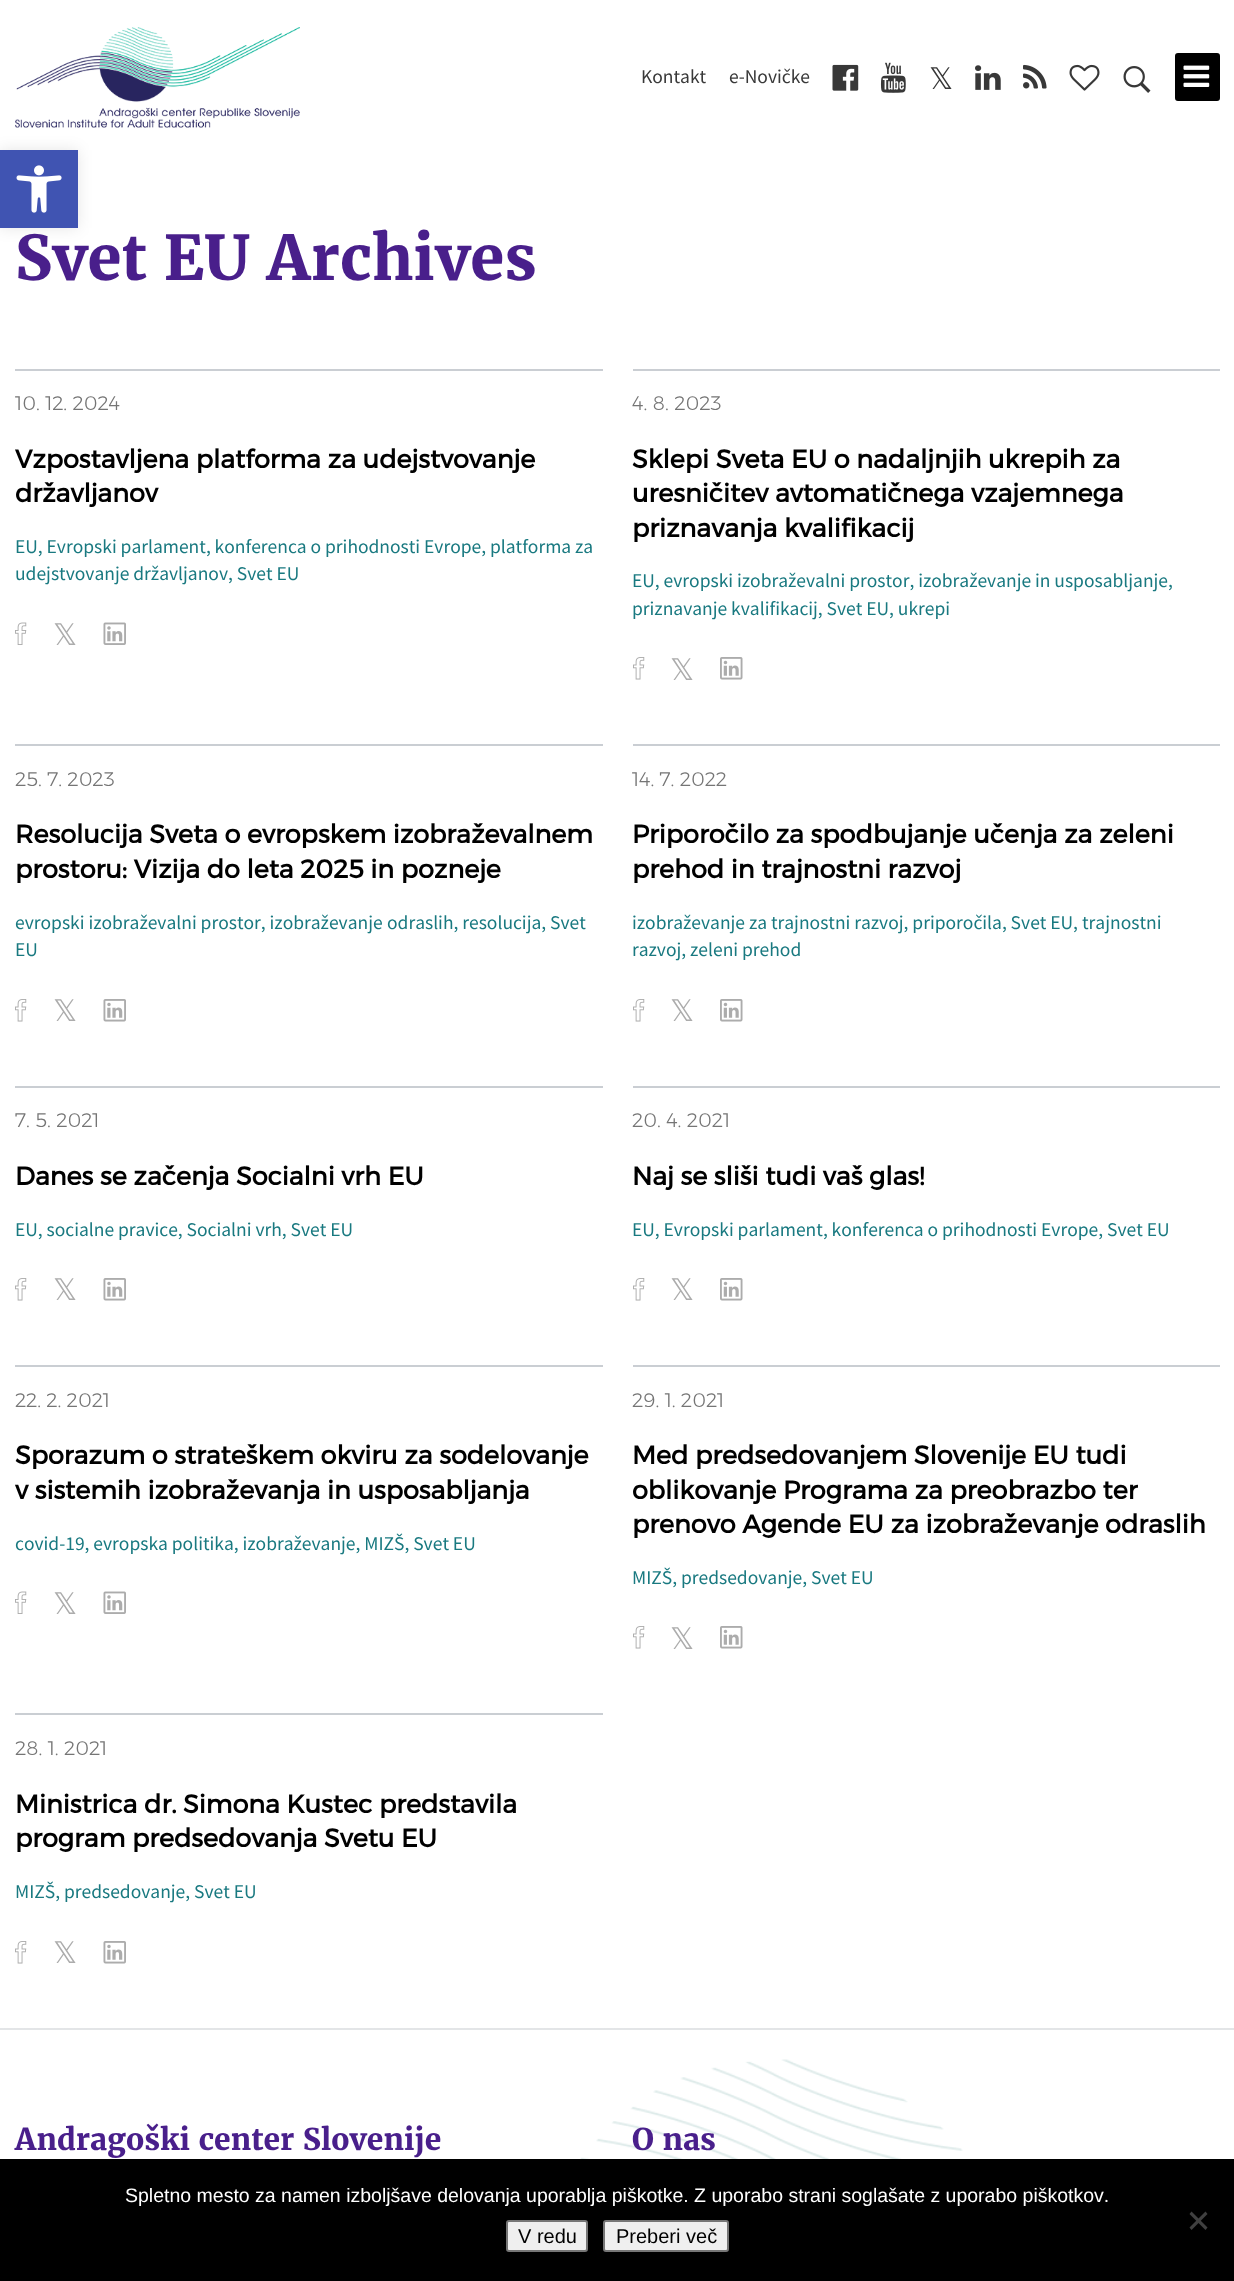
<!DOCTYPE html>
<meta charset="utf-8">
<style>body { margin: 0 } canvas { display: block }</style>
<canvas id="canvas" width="1234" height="2281"></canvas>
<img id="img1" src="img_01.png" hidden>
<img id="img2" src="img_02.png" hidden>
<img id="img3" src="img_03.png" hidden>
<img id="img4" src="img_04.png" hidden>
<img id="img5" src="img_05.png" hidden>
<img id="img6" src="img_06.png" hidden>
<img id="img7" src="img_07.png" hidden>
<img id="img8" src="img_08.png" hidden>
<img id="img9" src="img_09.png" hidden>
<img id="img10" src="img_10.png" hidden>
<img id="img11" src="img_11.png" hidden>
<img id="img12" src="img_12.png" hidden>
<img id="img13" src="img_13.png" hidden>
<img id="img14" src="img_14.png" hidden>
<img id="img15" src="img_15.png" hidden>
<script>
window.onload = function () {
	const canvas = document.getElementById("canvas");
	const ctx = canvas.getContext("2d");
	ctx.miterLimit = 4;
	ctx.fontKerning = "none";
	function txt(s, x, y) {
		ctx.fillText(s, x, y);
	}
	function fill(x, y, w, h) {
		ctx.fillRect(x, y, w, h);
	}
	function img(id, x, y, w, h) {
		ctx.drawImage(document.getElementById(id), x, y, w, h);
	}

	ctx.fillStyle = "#FFFFFF";
	fill(0, 0, 1234, 2281);
	img("img1", 15, 27, 285, 101);
	img("img2", 832, 64, 27, 27);
	img("img3", 880, 62, 26, 31);
	img("img4", 975, 65, 26, 25);
	img("img5", 1023, 64, 24, 25);
	img("img6", 1069, 64, 31, 27);
	img("img7", 1123, 66, 28, 27);
	ctx.fillStyle = "#000000";
	ctx.beginPath();
	ctx.roundRect(1176, 54, 43, 46, 2);
	ctx.fill();
	ctx.strokeStyle = "#000000";
	ctx.lineWidth = 2;
	ctx.stroke();
	img("img8", 1183, 65, 27, 22);
	ctx.fillStyle = "rgba(0, 0, 0, 0.1)";
	ctx.filter = "blur(7.5px)";
	ctx.beginPath();
	ctx.rect(0, 150, 78, 78);
	ctx.fill();
	ctx.filter = "none";
	ctx.fillStyle = "#4054B2";
	fill(0, 150, 78, 78);
	img("img9", 16, 165, 46, 48);
	ctx.fillStyle = "#CACED3";
	fill(15, 369, 588, 2);
	img("img10", 15, 622, 12, 23);
	img("img11", 103, 622, 23, 23);
	fill(633, 369, 587, 2);
	img("img12", 633, 657, 12, 23);
	img("img13", 720, 657, 23, 23);
	fill(15, 744, 588, 2);
	img("img12", 15, 999, 12, 23);
	img("img14", 103, 999, 23, 23);
	fill(633, 744, 587, 2);
	img("img12", 633, 999, 12, 23);
	img("img13", 720, 999, 23, 23);
	fill(15, 1086, 588, 2);
	img("img12", 15, 1278, 12, 23);
	img("img14", 103, 1278, 23, 23);
	fill(633, 1086, 587, 2);
	img("img12", 633, 1278, 12, 23);
	img("img13", 720, 1278, 23, 23);
	fill(15, 1365, 588, 2);
	img("img10", 15, 1591, 12, 23);
	img("img11", 103, 1591, 23, 23);
	fill(633, 1365, 587, 2);
	img("img12", 633, 1626, 12, 23);
	img("img13", 720, 1626, 23, 23);
	fill(15, 1713, 588, 2);
	img("img12", 15, 1941, 12, 23);
	img("img14", 103, 1941, 23, 23);
	ctx.fillStyle = "#E3E5E7";
	fill(0, 2028, 1234, 2);
	img("img15", 580, 2059, 383, 100);
	ctx.fillStyle = "#000000";
	fill(0, 2159, 1234, 122);
	ctx.fillStyle = "#404040";
	ctx.beginPath();
	ctx.moveTo(1205.5, 2211.5);
	ctx.lineTo(1207.5, 2214);
	ctx.lineTo(1191.5, 2230);
	ctx.lineTo(1189.5, 2227.5);
	ctx.closePath();
	ctx.fill();
	ctx.beginPath();
	ctx.moveTo(1189.5, 2214);
	ctx.lineTo(1191.5, 2211.5);
	ctx.lineTo(1207.5, 2227.5);
	ctx.lineTo(1205.5, 2230);
	ctx.closePath();
	ctx.fill();
	ctx.fillStyle = "#EFEFEF";
	ctx.beginPath();
	ctx.roundRect(507, 2221, 80, 30, 2);
	ctx.fill();
	ctx.strokeStyle = "#767676";
	ctx.stroke();
	ctx.beginPath();
	ctx.roundRect(604, 2221, 124, 30, 2);
	ctx.fill();
	ctx.stroke();
	ctx.font = "19.5px Source Sans Pro";
	ctx.fillStyle = "#383838";
	txt("Kontakt", 641, 83);
	txt("e-Novičke", 729, 83);
	ctx.font = "30px DejaVu Sans";
	txt("𝕏", 929, 89);
	ctx.font = "bold 61.5px Merriweather";
	ctx.fillStyle = "#491F8B";
	txt("Svet EU Archives", 15, 280);
	ctx.font = "300 19.5px Montserrat";
	ctx.fillStyle = "#757575";
	txt("10. 12. 2024", 15, 410);
	ctx.font = "bold 25.5px Montserrat";
	ctx.fillStyle = "#000000";
	txt("Vzpostavljena platforma za udejstvovanje", 15, 468);
	txt("državljanov", 15, 502);
	ctx.font = "19.5px Source Sans Pro";
	ctx.fillStyle = "#197980";
	txt("EU, Evropski parlament, konferenca o prihodnosti Evrope, platforma za", 15, 553);
	txt("udejstvovanje državljanov, Svet EU", 15, 580);
	ctx.font = "30px DejaVu Sans";
	ctx.fillStyle = "#ACACAC";
	txt("𝕏", 53, 645);
	ctx.font = "300 19.5px Montserrat";
	ctx.fillStyle = "#757575";
	txt("4. 8. 2023", 632, 410);
	ctx.font = "bold 25.5px Montserrat";
	ctx.fillStyle = "#000000";
	txt("Sklepi Sveta EU o nadaljnjih ukrepih za", 632, 468);
	txt("uresničitev avtomatičnega vzajemnega", 632, 502);
	txt("priznavanja kvalifikacij", 632, 537);
	ctx.font = "19.5px Source Sans Pro";
	ctx.fillStyle = "#197980";
	txt("EU, evropski izobraževalni prostor, izobraževanje", 632, 587);
	txt("in usposabljanje,", 1035, 587);
	txt("priznavanje kvalifikacij, Svet EU, ukrepi", 632, 615);
	ctx.font = "30px DejaVu Sans";
	ctx.fillStyle = "#ACACAC";
	txt("𝕏", 670, 680);
	ctx.font = "300 19.5px Montserrat";
	ctx.fillStyle = "#757575";
	txt("25. 7. 2023", 15, 786);
	ctx.font = "bold 25.5px Montserrat";
	ctx.fillStyle = "#000000";
	txt("Resolucija Sveta o evropskem izobraževalnem", 15, 843);
	txt("prostoru: Vizija do leta 2025 in pozneje", 15, 878);
	ctx.font = "19.5px Source Sans Pro";
	ctx.fillStyle = "#197980";
	txt("evropski izobraževalni prostor, izobraževanje", 15, 929);
	txt("odraslih, resolucija, Svet", 387, 929);
	txt("EU", 15, 956);
	ctx.font = "30px DejaVu Sans";
	ctx.fillStyle = "#ACACAC";
	txt("𝕏", 53, 1021);
	ctx.font = "300 19.5px Montserrat";
	ctx.fillStyle = "#757575";
	txt("14. 7. 2022", 632, 786);
	ctx.font = "bold 25.5px Montserrat";
	ctx.fillStyle = "#000000";
	txt("Priporočilo za spodbujanje učenja za zeleni", 632, 843);
	txt("prehod in trajnostni razvoj", 632, 878);
	ctx.font = "19.5px Source Sans Pro";
	ctx.fillStyle = "#197980";
	txt("izobraževanje za trajnostni razvoj, priporočila, Svet EU,", 632, 929);
	txt("trajnostni", 1082, 929);
	txt("razvoj, zeleni prehod", 632, 956);
	ctx.font = "30px DejaVu Sans";
	ctx.fillStyle = "#ACACAC";
	txt("𝕏", 670, 1021);
	ctx.font = "300 19.5px Montserrat";
	ctx.fillStyle = "#757575";
	txt("7. 5. 2021", 15, 1127);
	ctx.font = "bold 25.5px Montserrat";
	ctx.fillStyle = "#000000";
	txt("Danes se začenja Socialni vrh EU", 15, 1185);
	ctx.font = "19.5px Source Sans Pro";
	ctx.fillStyle = "#197980";
	txt("EU, socialne pravice, Socialni vrh, Svet EU", 15, 1236);
	ctx.font = "30px DejaVu Sans";
	ctx.fillStyle = "#ACACAC";
	txt("𝕏", 53, 1300);
	ctx.font = "300 19.5px Montserrat";
	ctx.fillStyle = "#757575";
	txt("20. 4. 2021", 632, 1127);
	ctx.font = "bold 25.5px Montserrat";
	ctx.fillStyle = "#000000";
	txt("Naj se sliši tudi vaš glas!", 632, 1185);
	ctx.font = "19.5px Source Sans Pro";
	ctx.fillStyle = "#197980";
	txt("EU, Evropski parlament, konferenca o prihodnosti Evrope, Svet EU", 632, 1236);
	ctx.font = "30px DejaVu Sans";
	ctx.fillStyle = "#ACACAC";
	txt("𝕏", 670, 1300);
	ctx.font = "300 19.5px Montserrat";
	ctx.fillStyle = "#757575";
	txt("22. 2. 2021", 15, 1407);
	ctx.font = "bold 25.5px Montserrat";
	ctx.fillStyle = "#000000";
	txt("Sporazum o strateškem okviru za sodelovanje", 15, 1464);
	txt("v sistemih izobraževanja in usposabljanja", 15, 1499);
	ctx.font = "19.5px Source Sans Pro";
	ctx.fillStyle = "#197980";
	txt("covid-19, evropska politika, izobraževanje, MIZŠ, Svet EU", 15, 1550);
	ctx.font = "30px DejaVu Sans";
	ctx.fillStyle = "#ACACAC";
	txt("𝕏", 53, 1614);
	ctx.font = "300 19.5px Montserrat";
	ctx.fillStyle = "#757575";
	txt("29. 1. 2021", 632, 1407);
	ctx.font = "bold 25.5px Montserrat";
	ctx.fillStyle = "#000000";
	txt("Med predsedovanjem Slovenije EU tudi", 632, 1464);
	txt("oblikovanje Programa za preobrazbo ter", 632, 1499);
	txt("prenovo Agende EU za izobraževanje odraslih", 632, 1533);
	ctx.font = "19.5px Source Sans Pro";
	ctx.fillStyle = "#197980";
	txt("MIZŠ, predsedovanje, Svet EU", 632, 1584);
	ctx.font = "30px DejaVu Sans";
	ctx.fillStyle = "#ACACAC";
	txt("𝕏", 670, 1649);
	ctx.font = "300 19.5px Montserrat";
	ctx.fillStyle = "#757575";
	txt("28. 1. 2021", 15, 1755);
	ctx.font = "bold 25.5px Montserrat";
	ctx.fillStyle = "#000000";
	txt("Ministrica dr. Simona Kustec predstavila", 15, 1813);
	txt("program predsedovanja Svetu EU", 15, 1847);
	ctx.font = "19.5px Source Sans Pro";
	ctx.fillStyle = "#197980";
	txt("MIZŠ, predsedovanje, Svet EU", 15, 1898);
	ctx.font = "30px DejaVu Sans";
	ctx.fillStyle = "#ACACAC";
	txt("𝕏", 53, 1963);
	ctx.font = "bold 30px Merriweather";
	ctx.fillStyle = "#491F8B";
	txt("Andragoški center Slovenije", 15, 2150);
	txt("O nas", 632, 2150);
	ctx.font = "19.5px Liberation Sans";
	ctx.fillStyle = "#FFFFFF";
	txt("Spletno mesto za namen izboljšave delovanja uporablja piškotke. Z uporabo strani soglašate z uporabo piškotkov.", 125, 2202);
	ctx.font = "20px Liberation Sans";
	ctx.fillStyle = "#000000";
	txt("V redu", 518, 2243);
	txt("Preberi več", 616, 2243);
};
</script>
